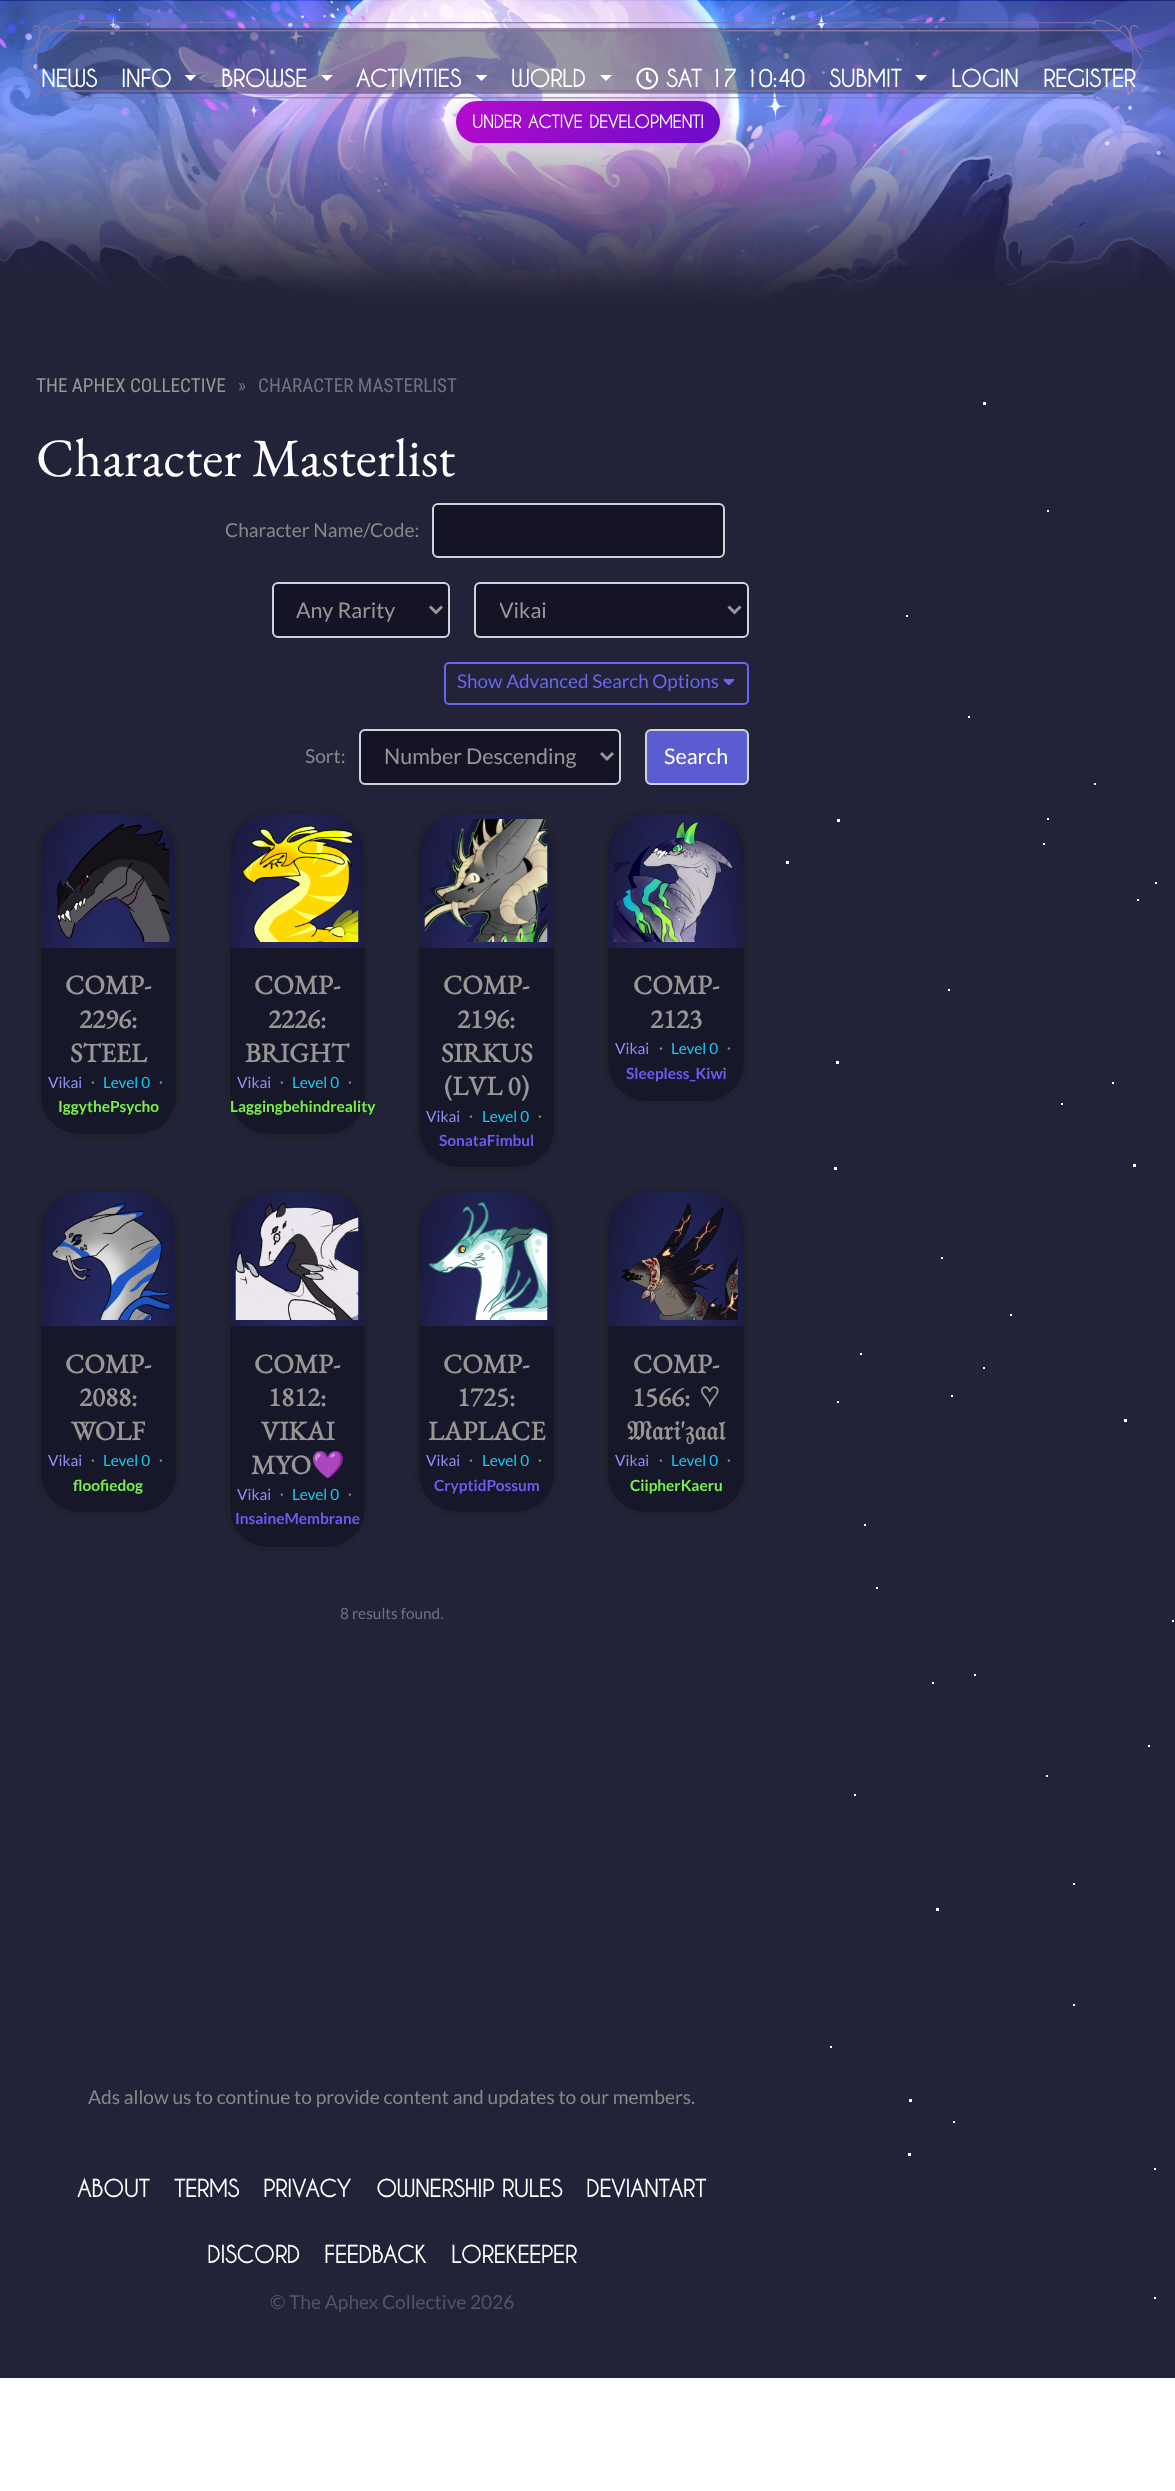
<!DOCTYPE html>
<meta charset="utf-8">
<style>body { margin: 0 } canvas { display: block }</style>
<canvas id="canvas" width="1175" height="2491"></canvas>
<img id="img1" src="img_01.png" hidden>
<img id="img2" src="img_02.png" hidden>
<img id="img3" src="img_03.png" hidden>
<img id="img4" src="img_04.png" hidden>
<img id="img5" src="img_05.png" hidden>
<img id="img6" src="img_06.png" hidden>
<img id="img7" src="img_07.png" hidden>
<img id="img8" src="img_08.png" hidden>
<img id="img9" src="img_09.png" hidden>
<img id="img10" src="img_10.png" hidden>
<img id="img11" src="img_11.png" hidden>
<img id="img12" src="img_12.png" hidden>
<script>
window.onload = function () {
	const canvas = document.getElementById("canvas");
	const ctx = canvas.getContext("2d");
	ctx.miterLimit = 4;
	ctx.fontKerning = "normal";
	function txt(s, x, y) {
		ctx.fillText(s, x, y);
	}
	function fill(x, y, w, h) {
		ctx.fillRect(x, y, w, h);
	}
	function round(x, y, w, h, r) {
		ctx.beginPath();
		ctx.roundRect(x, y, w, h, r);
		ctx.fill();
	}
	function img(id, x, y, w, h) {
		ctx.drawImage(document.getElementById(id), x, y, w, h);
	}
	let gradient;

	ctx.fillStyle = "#FFFFFF";
	fill(0, 0, 1175, 2491);
	ctx.fillStyle = "#222238";
	fill(0, 64, 1175, 2314);
	img("img1", 0, 0, 1175, 315);
	gradient = ctx.createLinearGradient(588, 120, 588, 330);
	gradient.addColorStop(0, "rgba(34, 34, 56, 0)");
	gradient.addColorStop(0.55, "rgba(34, 34, 56, 0.6)");
	gradient.addColorStop(1, "#222238");
	ctx.fillStyle = gradient;
	fill(0, 124, 1175, 191);
	ctx.fillStyle = "rgba(0, 0, 0, 0.2)";
	ctx.filter = "blur(7.5px)";
	ctx.beginPath();
	ctx.rect(11, 3, 15, 45);
	ctx.fill();
	ctx.filter = "none";
	img("img2", 19, 19, 1136, 82);
	ctx.fillStyle = "#FFFFFF";
	ctx.beginPath();
	ctx.moveTo(184.5, 75);
	ctx.lineTo(196.5, 75);
	ctx.lineTo(190.5, 81);
	ctx.closePath();
	ctx.fill();
	ctx.beginPath();
	ctx.moveTo(321, 75);
	ctx.lineTo(333, 75);
	ctx.lineTo(327, 81);
	ctx.closePath();
	ctx.fill();
	ctx.beginPath();
	ctx.moveTo(475.5, 75);
	ctx.lineTo(487.5, 75);
	ctx.lineTo(481.5, 81);
	ctx.closePath();
	ctx.fill();
	ctx.beginPath();
	ctx.moveTo(600, 75);
	ctx.lineTo(612, 75);
	ctx.lineTo(606, 81);
	ctx.closePath();
	ctx.fill();
	img("img3", 636, 67, 23, 23);
	ctx.beginPath();
	ctx.moveTo(915, 75);
	ctx.lineTo(927, 75);
	ctx.lineTo(921, 81);
	ctx.closePath();
	ctx.fill();
	ctx.fillStyle = "rgba(200, 100, 255, 0.3)";
	ctx.filter = "blur(6px)";
	ctx.beginPath();
	ctx.roundRect(456, 101, 264, 42, 21);
	ctx.fill();
	ctx.filter = "none";
	gradient = ctx.createLinearGradient(511, 45, 665, 198);
	gradient.addColorStop(0, "#B70BCB");
	gradient.addColorStop(1, "#6C0BCB");
	ctx.fillStyle = gradient;
	round(456, 101, 264, 42, 21);
	ctx.fillStyle = "#141426";
	ctx.beginPath();
	ctx.roundRect(433, 504, 291, 53, 5);
	ctx.fill();
	ctx.strokeStyle = "#CED4DA";
	ctx.lineWidth = 2;
	ctx.stroke();
	ctx.beginPath();
	ctx.roundRect(273, 583, 176, 54, 5);
	ctx.fill();
	ctx.stroke();
	ctx.beginPath();
	ctx.moveTo(430, 606.5);
	ctx.lineTo(436, 612.5);
	ctx.lineTo(442, 606.5);
	ctx.strokeStyle = "#999696";
	ctx.lineWidth = 3;
	ctx.stroke();
	ctx.beginPath();
	ctx.roundRect(475, 583, 273, 54, 5);
	ctx.fill();
	ctx.strokeStyle = "#CED4DA";
	ctx.lineWidth = 2;
	ctx.stroke();
	ctx.beginPath();
	ctx.moveTo(728.5, 606.5);
	ctx.lineTo(734.5, 612.5);
	ctx.lineTo(740.5, 606.5);
	ctx.strokeStyle = "#999696";
	ctx.lineWidth = 3;
	ctx.stroke();
	ctx.beginPath();
	ctx.roundRect(445, 663, 303, 41, 4);
	ctx.strokeStyle = "#6767F0";
	ctx.lineWidth = 2;
	ctx.stroke();
	img("img4", 723, 679, 12, 7);
	ctx.beginPath();
	ctx.roundRect(360, 730, 260, 54, 5);
	ctx.fill();
	ctx.strokeStyle = "#CED4DA";
	ctx.stroke();
	ctx.beginPath();
	ctx.moveTo(601, 753);
	ctx.lineTo(607, 759);
	ctx.lineTo(613, 753);
	ctx.strokeStyle = "#999696";
	ctx.lineWidth = 3;
	ctx.stroke();
	ctx.fillStyle = "#5C5CD1";
	ctx.beginPath();
	ctx.roundRect(646, 730, 102, 54, 5);
	ctx.fill();
	ctx.strokeStyle = "#CED4DA";
	ctx.lineWidth = 2;
	ctx.stroke();
	ctx.save();
	ctx.beginPath();
	ctx.roundRect(36, 809, 144, 330, 45);
	ctx.clip();
	gradient = ctx.createRadialGradient(108, 238.12, 0, 108, 238.12, 143);
	gradient.addColorStop(0, "#323587");
	gradient.addColorStop(1, "#090A0F");
	ctx.fillStyle = gradient;
	ctx.beginPath();
	ctx.rect(41, 813, 135, 321);
	ctx.save();
	ctx.clip();
	ctx.scale(1, 681 / 143);
	ctx.fillRect(0, 0, 1175, 524);
	ctx.restore();
	ctx.restore();
	ctx.beginPath();
	ctx.roundRect(38.5, 811.5, 139, 325, 42.5);
	ctx.strokeStyle = "#212230";
	ctx.lineWidth = 5;
	ctx.stroke();
	img("img5", 56, 823, 114, 119);
	ctx.fillStyle = "#161729";
	ctx.beginPath();
	ctx.roundRect(41, 948, 135, 186, [0, 0, 38, 38]);
	ctx.fill();
	ctx.save();
	ctx.beginPath();
	ctx.roundRect(225, 809, 144, 330, 45);
	ctx.clip();
	gradient = ctx.createRadialGradient(297, 238.12, 0, 297, 238.12, 143);
	gradient.addColorStop(0, "#323587");
	gradient.addColorStop(1, "#090A0F");
	ctx.fillStyle = gradient;
	ctx.beginPath();
	ctx.rect(230, 813, 135, 321);
	ctx.save();
	ctx.clip();
	ctx.scale(1, 681 / 143);
	ctx.fillRect(0, 0, 1175, 524);
	ctx.restore();
	ctx.restore();
	ctx.beginPath();
	ctx.roundRect(227.5, 811.5, 139, 325, 42.5);
	ctx.stroke();
	img("img6", 242, 825, 117, 117);
	ctx.beginPath();
	ctx.roundRect(230, 948, 135, 186, [0, 0, 38, 38]);
	ctx.fill();
	ctx.save();
	ctx.beginPath();
	ctx.roundRect(414, 809, 144, 363, 45);
	ctx.clip();
	gradient = ctx.createRadialGradient(486, 222.21, 0, 486, 222.21, 143);
	gradient.addColorStop(0, "#323587");
	gradient.addColorStop(1, "#090A0F");
	ctx.fillStyle = gradient;
	ctx.beginPath();
	ctx.rect(419, 813, 135, 354);
	ctx.save();
	ctx.clip();
	ctx.scale(1, 751 / 143);
	ctx.fillRect(0, 0, 1175, 475);
	ctx.restore();
	ctx.restore();
	ctx.beginPath();
	ctx.roundRect(416.5, 811.5, 139, 358, 42.5);
	ctx.stroke();
	img("img7", 424, 819, 124, 123);
	ctx.beginPath();
	ctx.roundRect(419, 948, 135, 219, [0, 0, 38, 38]);
	ctx.fill();
	ctx.save();
	ctx.beginPath();
	ctx.roundRect(603, 809, 146, 297, 45);
	ctx.clip();
	gradient = ctx.createRadialGradient(676, 261.28, 0, 676, 261.28, 145);
	gradient.addColorStop(0, "#323587");
	gradient.addColorStop(1, "#090A0F");
	ctx.fillStyle = gradient;
	ctx.beginPath();
	ctx.rect(608, 813, 136, 288);
	ctx.save();
	ctx.clip();
	ctx.scale(1, 611 / 145);
	ctx.fillRect(0, 0, 1175, 592);
	ctx.restore();
	ctx.restore();
	ctx.beginPath();
	ctx.roundRect(605.5, 811.5, 141, 292, 42.5);
	ctx.stroke();
	img("img8", 613, 821, 120, 121);
	ctx.beginPath();
	ctx.roundRect(608, 948, 136, 153, [0, 0, 38, 38]);
	ctx.fill();
	ctx.save();
	ctx.beginPath();
	ctx.roundRect(36, 1187, 144, 330, 45);
	ctx.clip();
	gradient = ctx.createRadialGradient(108, 317.5, 0, 108, 317.5, 143);
	gradient.addColorStop(0, "#323587");
	gradient.addColorStop(1, "#090A0F");
	ctx.fillStyle = gradient;
	ctx.beginPath();
	ctx.rect(41, 1191, 135, 321);
	ctx.save();
	ctx.clip();
	ctx.scale(1, 681 / 143);
	ctx.fillRect(0, 0, 1175, 524);
	ctx.restore();
	ctx.restore();
	ctx.beginPath();
	ctx.roundRect(38.5, 1189.5, 139, 325, 42.5);
	ctx.stroke();
	img("img9", 51, 1203, 119, 117);
	ctx.beginPath();
	ctx.roundRect(41, 1326, 135, 186, [0, 0, 38, 38]);
	ctx.fill();
	ctx.save();
	ctx.beginPath();
	ctx.roundRect(225, 1187, 144, 364, 45);
	ctx.clip();
	gradient = ctx.createRadialGradient(297, 293.4, 0, 297, 293.4, 143);
	gradient.addColorStop(0, "#323587");
	gradient.addColorStop(1, "#090A0F");
	ctx.fillStyle = gradient;
	ctx.beginPath();
	ctx.rect(230, 1191, 135, 356);
	ctx.save();
	ctx.clip();
	ctx.scale(1, 754 / 143);
	ctx.fillRect(0, 0, 1175, 473);
	ctx.restore();
	ctx.restore();
	ctx.beginPath();
	ctx.roundRect(227.5, 1189.5, 139, 359, 42.5);
	ctx.stroke();
	img("img10", 235, 1202, 124, 118);
	ctx.beginPath();
	ctx.roundRect(230, 1326, 135, 221, [0, 0, 38, 38]);
	ctx.fill();
	ctx.save();
	ctx.beginPath();
	ctx.roundRect(414, 1187, 144, 330, 45);
	ctx.clip();
	gradient = ctx.createRadialGradient(486, 317.5, 0, 486, 317.5, 143);
	gradient.addColorStop(0, "#323587");
	gradient.addColorStop(1, "#090A0F");
	ctx.fillStyle = gradient;
	ctx.beginPath();
	ctx.rect(419, 1191, 135, 321);
	ctx.save();
	ctx.clip();
	ctx.scale(1, 681 / 143);
	ctx.fillRect(0, 0, 1175, 524);
	ctx.restore();
	ctx.restore();
	ctx.beginPath();
	ctx.roundRect(416.5, 1189.5, 139, 325, 42.5);
	ctx.stroke();
	img("img11", 428, 1202, 120, 118);
	ctx.beginPath();
	ctx.roundRect(419, 1326, 135, 186, [0, 0, 38, 38]);
	ctx.fill();
	ctx.save();
	ctx.beginPath();
	ctx.roundRect(603, 1187, 146, 330, 45);
	ctx.clip();
	gradient = ctx.createRadialGradient(676, 321.94, 0, 676, 321.94, 145);
	gradient.addColorStop(0, "#323587");
	gradient.addColorStop(1, "#090A0F");
	ctx.fillStyle = gradient;
	ctx.beginPath();
	ctx.rect(608, 1191, 136, 321);
	ctx.save();
	ctx.clip();
	ctx.scale(1, 681 / 145);
	ctx.fillRect(0, 0, 1175, 531);
	ctx.restore();
	ctx.restore();
	ctx.beginPath();
	ctx.roundRect(605.5, 1189.5, 141, 325, 42.5);
	ctx.stroke();
	img("img12", 620, 1203, 118, 117);
	ctx.beginPath();
	ctx.roundRect(608, 1326, 136, 186, [0, 0, 38, 38]);
	ctx.fill();
	ctx.fillStyle = "#FFFFFF";
	fill(1124, 1419, 3, 3);
	fill(786, 861, 3, 3);
	fill(936, 1908, 3, 3);
	fill(836, 1061, 3, 3);
	fill(834, 1167, 3, 3);
	fill(983, 402, 3, 3);
	fill(1133, 1164, 3, 3);
	fill(837, 819, 3, 3);
	fill(909, 2099, 3, 3);
	fill(908, 2153, 3, 3);
	fill(932, 1682, 2, 2);
	fill(854, 1794, 2, 2);
	fill(951, 1395, 2, 2);
	fill(1010, 1314, 2, 2);
	fill(983, 1367, 2, 2);
	fill(948, 989, 2, 2);
	fill(1137, 899, 2, 2);
	fill(953, 2121, 2, 2);
	fill(1154, 2297, 2, 2);
	fill(1094, 783, 2, 2);
	fill(1112, 1082, 2, 2);
	fill(906, 615, 2, 2);
	fill(830, 2046, 2, 2);
	fill(1154, 2168, 2, 2);
	fill(1046, 1775, 2, 2);
	fill(941, 1257, 2, 2);
	fill(1047, 818, 2, 2);
	fill(1148, 1745, 2, 2);
	fill(1061, 1103, 2, 2);
	fill(1047, 510, 2, 2);
	fill(1073, 2004, 2, 2);
	fill(1155, 882, 2, 2);
	fill(860, 1353, 2, 2);
	fill(968, 716, 2, 2);
	fill(974, 1674, 2, 2);
	fill(876, 1587, 2, 2);
	fill(1073, 1883, 2, 2);
	fill(864, 1524, 2, 2);
	fill(837, 1401, 2, 2);
	fill(1172, 1620, 2, 2);
	fill(1043, 843, 2, 2);
	ctx.font = "bold 22.5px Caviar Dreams";
	txt("NEWS", 41, 87);
	txt("INFO", 121, 87);
	txt("BROWSE", 221, 87);
	txt("ACTIVITIES", 356, 87);
	txt("WORLD", 511, 87);
	txt("SAT 17 10:40", 666, 87);
	txt("SUBMIT", 829, 87);
	txt("LOGIN", 951, 87);
	txt("REGISTER", 1043, 87);
	ctx.wordSpacing = "1px";
	ctx.font = "bold 16.75px Caviar Dreams";
	txt("UNDER ACTIVE DEVELOPMENT!", 472, 128);
	ctx.wordSpacing = "0px";
	ctx.font = "19.2px Roboto Condensed";
	ctx.fillStyle = "#999696";
	txt("THE APHEX COLLECTIVE", 36, 392);
	ctx.fillStyle = "#6C757D";
	txt("»", 238, 392);
	txt("CHARACTER MASTERLIST", 258, 392);
	ctx.font = "54px EB Garamond";
	ctx.fillStyle = "#FFFFFF";
	txt("Character Masterlist", 36, 476);
	ctx.font = "19.2px Lato";
	ctx.fillStyle = "#898888";
	txt("Character Name/Code:", 225, 537);
	ctx.font = "21.5px Lato";
	ctx.fillStyle = "#999696";
	txt("Any Rarity", 296, 618);
	ctx.save();
	ctx.beginPath();
	ctx.rect(500, 596, 205, 28);
	ctx.clip();
	txt("Vikai", 499, 618);
	ctx.restore();
	ctx.font = "18.9px Lato";
	ctx.fillStyle = "#6767F0";
	txt("Show Advanced Search Options", 457, 688);
	ctx.font = "19.2px Lato";
	ctx.fillStyle = "#898888";
	txt("Sort:", 305, 763);
	ctx.font = "21.5px Lato";
	ctx.fillStyle = "#999696";
	txt("Number Descending", 384, 764);
	ctx.fillStyle = "#FFFFFF";
	txt("Search", 664, 764);
	ctx.font = "bold 27px EB Garamond";
	ctx.fillStyle = "#999696";
	txt("COMP-", 65, 994);
	txt("2296:", 79, 1028);
	txt("STEEL", 70, 1062);
	ctx.font = "15.4px Lato";
	ctx.fillStyle = "#8F8FF2";
	txt("Vikai", 48, 1088);
	ctx.font = "500 15.4px WenQuanYi Zen Hei";
	ctx.fillStyle = "#898888";
	txt("・", 85, 1088);
	ctx.font = "15.4px Lato";
	ctx.fillStyle = "#19C9F3";
	txt("Level 0", 103, 1088);
	ctx.font = "500 15.4px WenQuanYi Zen Hei";
	ctx.fillStyle = "#898888";
	txt("・", 153, 1088);
	ctx.font = "bold 15.4px Lato";
	ctx.fillStyle = "#79F149";
	txt("IggythePsycho", 58, 1112);
	ctx.font = "bold 27px EB Garamond";
	ctx.fillStyle = "#999696";
	txt("COMP-", 254, 994);
	txt("2226:", 268, 1028);
	txt("BRIGHT", 245, 1062);
	ctx.font = "15.4px Lato";
	ctx.fillStyle = "#8F8FF2";
	txt("Vikai", 237, 1088);
	ctx.font = "500 15.4px WenQuanYi Zen Hei";
	ctx.fillStyle = "#898888";
	txt("・", 274, 1088);
	ctx.font = "15.4px Lato";
	ctx.fillStyle = "#19C9F3";
	txt("Level 0", 292, 1088);
	ctx.font = "500 15.4px WenQuanYi Zen Hei";
	ctx.fillStyle = "#898888";
	txt("・", 342, 1088);
	ctx.font = "bold 15.4px Lato";
	ctx.fillStyle = "#79F149";
	txt("Laggingbehindreality", 230, 1112);
	ctx.font = "bold 27px EB Garamond";
	ctx.fillStyle = "#999696";
	txt("COMP-", 443, 994);
	txt("2196:", 457, 1028);
	txt("SIRKUS", 441, 1062);
	txt("(LVL 0)", 444, 1095);
	ctx.font = "15.4px Lato";
	ctx.fillStyle = "#8F8FF2";
	txt("Vikai", 426, 1122);
	ctx.font = "500 15.4px WenQuanYi Zen Hei";
	ctx.fillStyle = "#898888";
	txt("・", 463, 1122);
	ctx.font = "15.4px Lato";
	ctx.fillStyle = "#19C9F3";
	txt("Level 0", 482, 1122);
	ctx.font = "500 15.4px WenQuanYi Zen Hei";
	ctx.fillStyle = "#898888";
	txt("・", 532, 1122);
	ctx.font = "bold 15.4px Lato";
	ctx.fillStyle = "#6B5CF2";
	txt("SonataFimbul", 439, 1146);
	ctx.font = "bold 27px EB Garamond";
	ctx.fillStyle = "#999696";
	txt("COMP-", 633, 994);
	txt("2123", 650, 1028);
	ctx.font = "15.4px Lato";
	ctx.fillStyle = "#8F8FF2";
	txt("Vikai", 615, 1054);
	ctx.font = "500 15.4px WenQuanYi Zen Hei";
	ctx.fillStyle = "#898888";
	txt("・", 653, 1054);
	ctx.font = "15.4px Lato";
	ctx.fillStyle = "#19C9F3";
	txt("Level 0", 671, 1054);
	ctx.font = "500 15.4px WenQuanYi Zen Hei";
	ctx.fillStyle = "#898888";
	txt("・", 721, 1054);
	ctx.font = "bold 15.4px Lato";
	ctx.fillStyle = "#6B5CF2";
	txt("Sleepless_Kiwi", 626, 1079);
	ctx.font = "bold 27px EB Garamond";
	ctx.fillStyle = "#999696";
	txt("COMP-", 65, 1373);
	txt("2088:", 79, 1406);
	txt("WOLF", 71, 1440);
	ctx.font = "15.4px Lato";
	ctx.fillStyle = "#8F8FF2";
	txt("Vikai", 48, 1466);
	ctx.font = "500 15.4px WenQuanYi Zen Hei";
	ctx.fillStyle = "#898888";
	txt("・", 85, 1466);
	ctx.font = "15.4px Lato";
	ctx.fillStyle = "#19C9F3";
	txt("Level 0", 103, 1466);
	ctx.font = "500 15.4px WenQuanYi Zen Hei";
	ctx.fillStyle = "#898888";
	txt("・", 153, 1466);
	ctx.font = "bold 15.4px Lato";
	ctx.fillStyle = "#79F149";
	txt("floofiedog", 73, 1491);
	ctx.font = "bold 27px EB Garamond";
	ctx.fillStyle = "#999696";
	txt("COMP-", 254, 1373);
	txt("1812:", 268, 1406);
	txt("VIKAI", 261, 1440);
	txt("MYO", 251, 1474);
	ctx.font = "bold 27px Noto Color Emoji";
	txt("💜", 311, 1474);
	ctx.font = "15.4px Lato";
	ctx.fillStyle = "#8F8FF2";
	txt("Vikai", 237, 1500);
	ctx.font = "500 15.4px WenQuanYi Zen Hei";
	ctx.fillStyle = "#898888";
	txt("・", 274, 1500);
	ctx.font = "15.4px Lato";
	ctx.fillStyle = "#19C9F3";
	txt("Level 0", 292, 1500);
	ctx.font = "500 15.4px WenQuanYi Zen Hei";
	ctx.fillStyle = "#898888";
	txt("・", 342, 1500);
	ctx.font = "bold 15.4px Lato";
	ctx.fillStyle = "#6B5CF2";
	txt("InsaineMembrane", 235, 1524);
	ctx.font = "bold 27px EB Garamond";
	ctx.fillStyle = "#999696";
	txt("COMP-", 443, 1373);
	txt("1725:", 457, 1406);
	txt("LAPLACE", 428, 1440);
	ctx.font = "15.4px Lato";
	ctx.fillStyle = "#8F8FF2";
	txt("Vikai", 426, 1466);
	ctx.font = "500 15.4px WenQuanYi Zen Hei";
	ctx.fillStyle = "#898888";
	txt("・", 463, 1466);
	ctx.font = "15.4px Lato";
	ctx.fillStyle = "#19C9F3";
	txt("Level 0", 482, 1466);
	ctx.font = "500 15.4px WenQuanYi Zen Hei";
	ctx.fillStyle = "#898888";
	txt("・", 532, 1466);
	ctx.font = "bold 15.4px Lato";
	ctx.fillStyle = "#6B5CF2";
	txt("CryptidPossum", 434, 1491);
	ctx.font = "bold 27px EB Garamond";
	ctx.fillStyle = "#999696";
	txt("COMP-", 633, 1373);
	txt("1566:", 632, 1406);
	ctx.font = "bold 27px FreeSerif";
	txt("♡", 699, 1406);
	txt("𝔐𝔞𝔯𝔦", 627, 1440);
	ctx.font = "bold 27px EB Garamond";
	txt("'", 680, 1440);
	ctx.font = "bold 27px FreeSerif";
	txt("𝔷𝔞𝔞𝔩", 685, 1440);
	ctx.font = "15.4px Lato";
	ctx.fillStyle = "#8F8FF2";
	txt("Vikai", 615, 1466);
	ctx.font = "500 15.4px WenQuanYi Zen Hei";
	ctx.fillStyle = "#898888";
	txt("・", 653, 1466);
	ctx.font = "15.4px Lato";
	ctx.fillStyle = "#19C9F3";
	txt("Level 0", 671, 1466);
	ctx.font = "500 15.4px WenQuanYi Zen Hei";
	ctx.fillStyle = "#898888";
	txt("・", 721, 1466);
	ctx.font = "bold 15.4px Lato";
	ctx.fillStyle = "#79F149";
	txt("CiipherKaeru", 630, 1491);
	ctx.font = "15.4px Lato";
	ctx.fillStyle = "#6C757D";
	txt("8 results found.", 340, 1619);
	ctx.font = "19.2px Lato";
	ctx.fillStyle = "#898888";
	txt("Ads allow us to continue to provide content and updates to our members.", 88, 2104);
	ctx.font = "bold 22.5px Caviar Dreams";
	ctx.fillStyle = "#FFFFFF";
	txt("ABOUT", 77, 2197);
	txt("TERMS", 174, 2197);
	txt("PRIVACY", 263, 2197);
	txt("OWNERSHIP RULES", 376, 2197);
	txt("DEVIANTART", 586, 2197);
	txt("DISCORD", 207, 2263);
	txt("FEEDBACK", 324, 2263);
	txt("LOREKEEPER", 451, 2263);
	ctx.font = "19.2px Lato";
	ctx.fillStyle = "#4E5861";
	txt("© The Aphex Collective 2026", 270, 2309);
};
</script>
